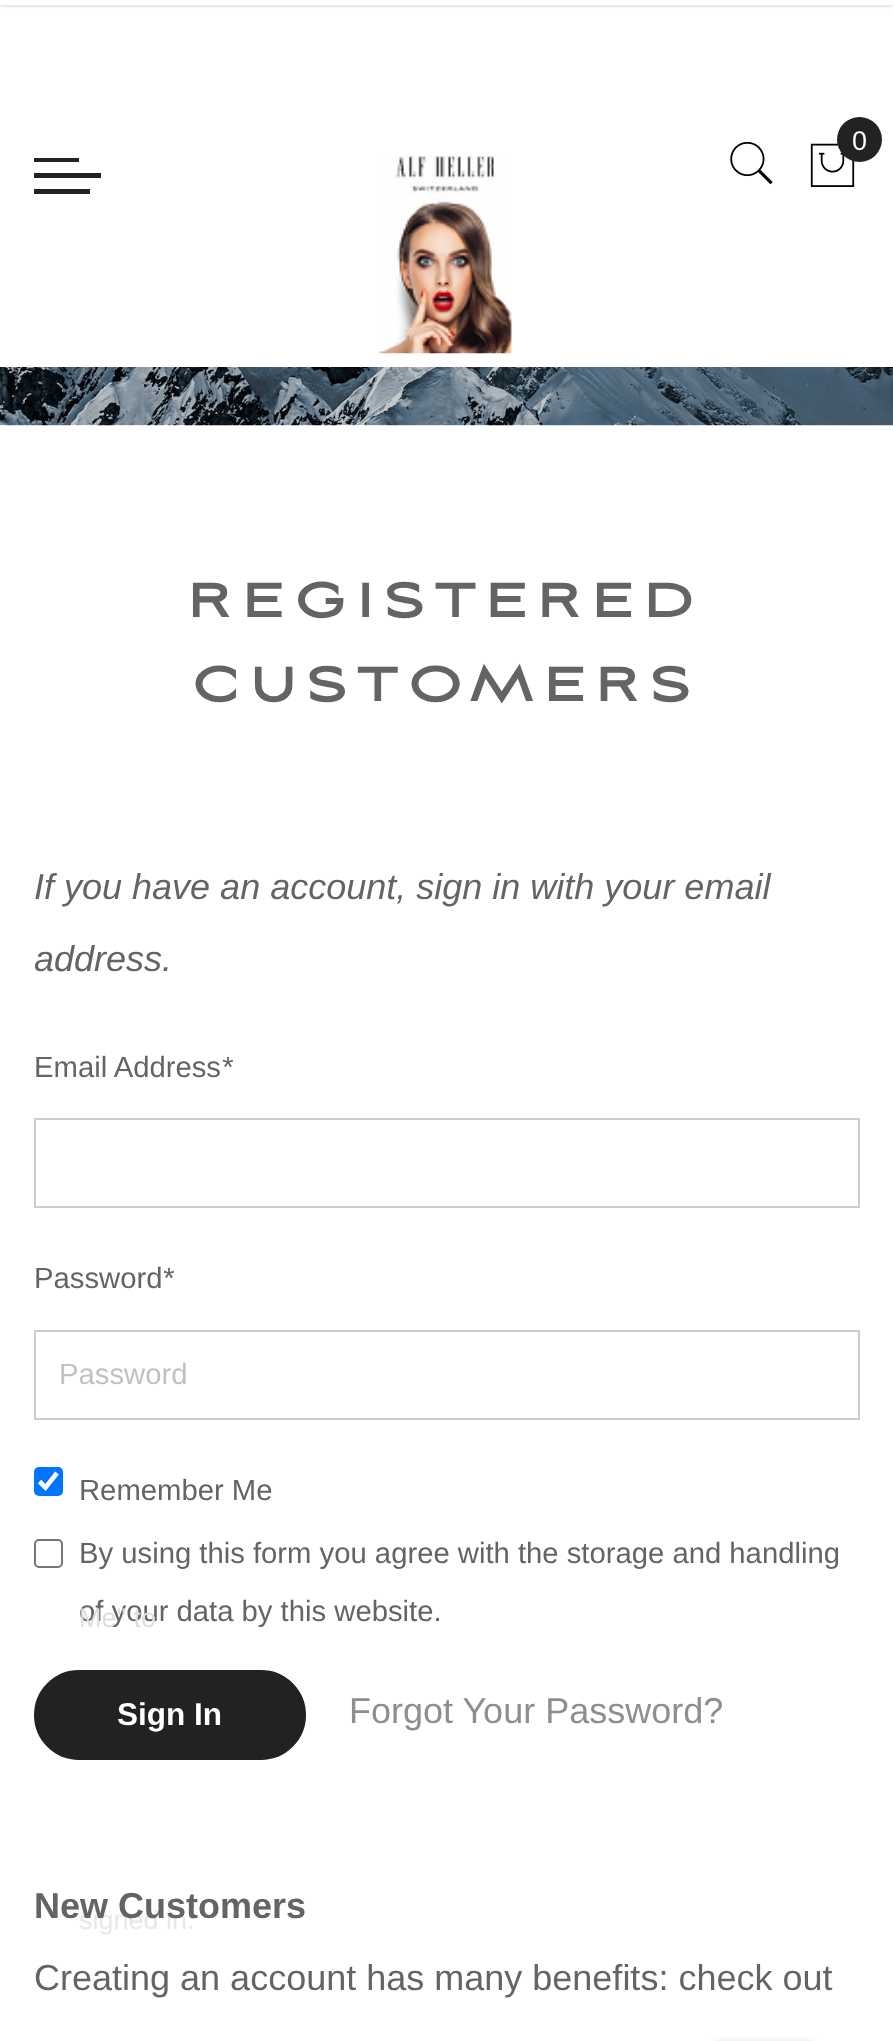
<!DOCTYPE html>
<meta charset="utf-8">
<style>body { margin: 0 } canvas { display: block }</style>
<canvas id="canvas" width="893" height="2041"></canvas>
<img id="img1" src="img_01.png" hidden>
<img id="img2" src="img_02.png" hidden>
<img id="img3" src="img_03.png" hidden>
<img id="img4" src="img_04.png" hidden>
<script>
window.onload = function () {
	const canvas = document.getElementById("canvas");
	const ctx = canvas.getContext("2d");
	ctx.miterLimit = 4;
	ctx.fontKerning = "normal";
	function txt(s, x, y) {
		ctx.fillText(s, x, y);
	}
	function fill(x, y, w, h) {
		ctx.fillRect(x, y, w, h);
	}
	function round(x, y, w, h, r) {
		ctx.beginPath();
		ctx.roundRect(x, y, w, h, r);
		ctx.fill();
	}
	function img(id, x, y, w, h) {
		ctx.drawImage(document.getElementById(id), x, y, w, h);
	}

	ctx.fillStyle = "#FFFFFF";
	fill(0, 0, 893, 2041);
	ctx.fillStyle = "rgba(0, 0, 0, 0.05)";
	ctx.filter = "blur(1px)";
	ctx.beginPath();
	ctx.roundRect(0, 2, 893, 5, 2.5);
	ctx.fill();
	ctx.filter = "none";
	ctx.filter = "blur(1px)";
	ctx.beginPath();
	ctx.roundRect(0, 2, 893, 5, 2.5);
	ctx.fill();
	ctx.filter = "none";
	ctx.fillStyle = "#FFFFFF";
	round(0, 0, 893, 5, 2.5);
	img("img1", 730, 141, 43, 44);
	img("img2", 810, 143, 45, 44);
	ctx.fillStyle = "#222222";
	ctx.beginPath();
	ctx.arc(859.5, 139.5, 22.5, 0, Math.PI * 2);
	ctx.fill();
	fill(34, 158, 45, 4);
	fill(34, 173, 67, 5);
	fill(34, 189, 56, 5);
	img("img3", 378, 154, 134, 200);
	img("img4", 0, 367, 893, 59);
	ctx.strokeStyle = "#CCCCCC";
	ctx.lineWidth = 2;
	ctx.strokeRect(35, 1119, 824, 88);
	ctx.strokeRect(35, 1331, 824, 88);
	ctx.fillStyle = "#0075FF";
	round(34, 1467, 29, 29, 5);
	ctx.beginPath();
	ctx.moveTo(39.5, 1481.5);
	ctx.lineTo(45.5, 1487.5);
	ctx.lineTo(57, 1473);
	ctx.strokeStyle = "#FFFFFF";
	ctx.lineWidth = 4.7;
	ctx.stroke();
	ctx.beginPath();
	ctx.roundRect(35, 1540, 27, 27, 4);
	ctx.strokeStyle = "#767676";
	ctx.lineWidth = 2;
	ctx.stroke();
	ctx.fillStyle = "#222222";
	ctx.beginPath();
	ctx.roundRect(36.5, 1672.5, 267, 85, 42.5);
	ctx.fill();
	ctx.strokeStyle = "#222222";
	ctx.lineWidth = 5;
	ctx.stroke();
	ctx.fillStyle = "rgba(0, 0, 0, 0.2)";
	ctx.filter = "blur(3.5px)";
	ctx.beginPath();
	ctx.roundRect(713, 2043, 102, 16, 7);
	ctx.fill();
	ctx.filter = "none";
	ctx.font = "27px Liberation Sans";
	ctx.fillStyle = "#FFFFFF";
	txt("0", 852, 150);
	ctx.letterSpacing = "11.25px";
	ctx.font = "bold 58.5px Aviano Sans";
	ctx.fillStyle = "#646464";
	txt("REGISTERED", 188, 617);
	txt("CUSTOMERS", 192, 701);
	ctx.letterSpacing = "0px";
	ctx.font = "italic 36px Liberation Sans";
	txt("If you have an account, sign in with your email", 34, 899);
	txt("address.", 34, 971);
	ctx.font = "29.25px Liberation Sans";
	txt("Email Address", 34, 1077);
	ctx.font = "italic 29.25px Liberation Sans";
	txt("*", 221, 1077);
	ctx.font = "29.25px Liberation Sans";
	txt("Password", 34, 1288);
	ctx.font = "italic 29.25px Liberation Sans";
	txt("*", 162, 1288);
	ctx.font = "29.25px Liberation Sans";
	ctx.fillStyle = "#C1C1C1";
	txt("Password", 59, 1384);
	ctx.fillStyle = "#646464";
	txt("Remember Me", 79, 1500);
	ctx.font = "27px Liberation Sans";
	ctx.fillStyle = "#E8E8E8";
	txt("signed in.", 79, 1929);
	ctx.font = "29.25px Liberation Sans";
	ctx.fillStyle = "#646464";
	txt("By using this form you agree with the storage and handling", 79, 1563);
	txt("of your data by this website.", 79, 1621);
	ctx.font = "27px Liberation Sans";
	ctx.fillStyle = "#DEDEDE";
	txt("Me\" to", 79, 1627);
	ctx.font = "bold 31.5px Liberation Sans";
	ctx.fillStyle = "#FFFFFF";
	txt("Sign In", 117, 1725);
	ctx.font = "36px Liberation Sans";
	ctx.fillStyle = "#8E8E8E";
	txt("Forgot Your Password?", 349, 1723);
	ctx.font = "bold 36px Liberation Sans";
	ctx.fillStyle = "#646464";
	txt("New Customers", 34, 1918);
	ctx.font = "36px Liberation Sans";
	txt("Creating an account has many benefits: check out", 34, 1990);
};
</script>
